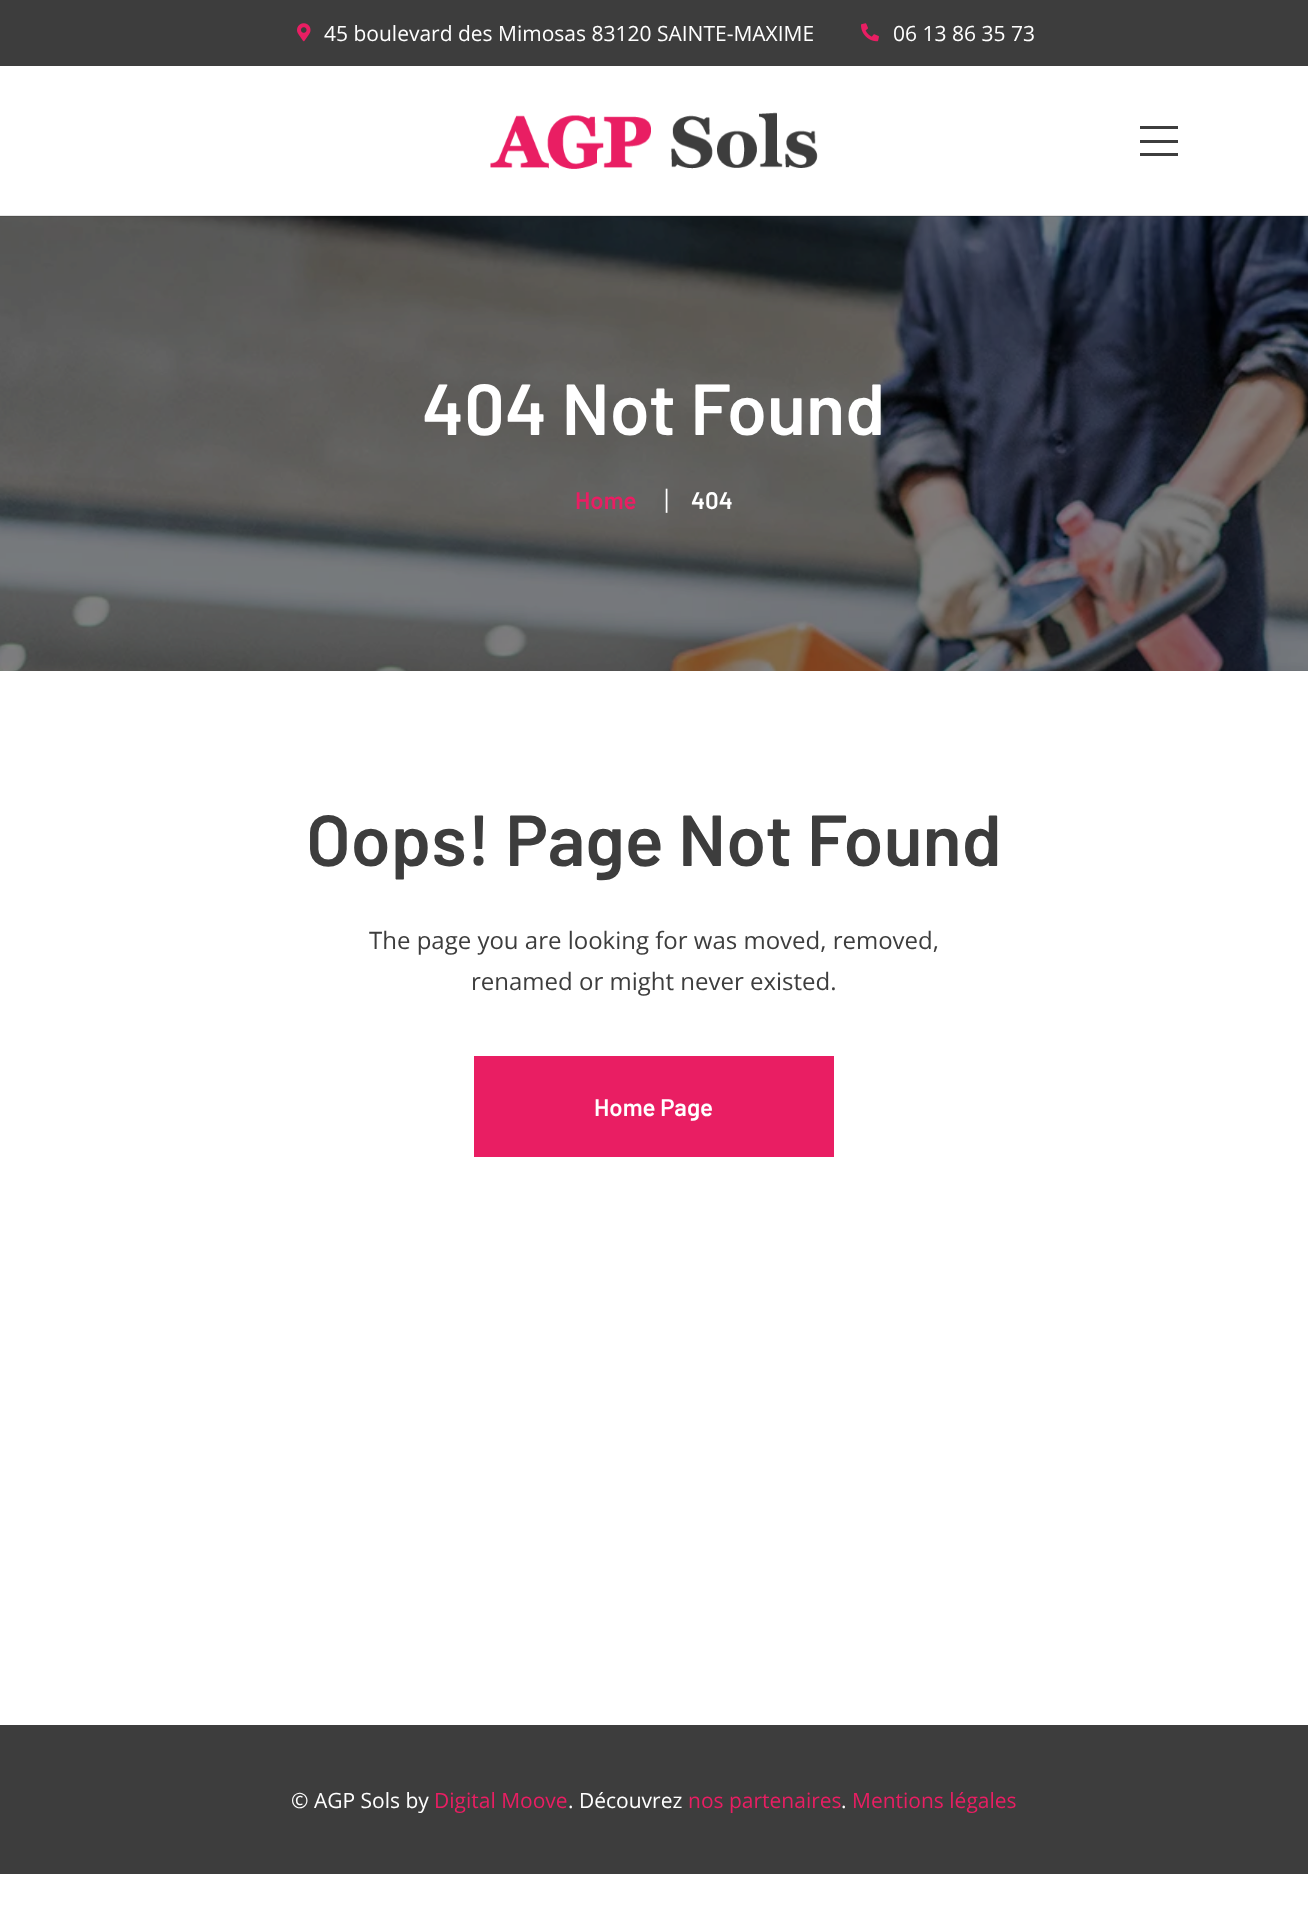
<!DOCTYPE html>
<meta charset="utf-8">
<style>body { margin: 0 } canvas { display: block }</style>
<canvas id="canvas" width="1308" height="1916"></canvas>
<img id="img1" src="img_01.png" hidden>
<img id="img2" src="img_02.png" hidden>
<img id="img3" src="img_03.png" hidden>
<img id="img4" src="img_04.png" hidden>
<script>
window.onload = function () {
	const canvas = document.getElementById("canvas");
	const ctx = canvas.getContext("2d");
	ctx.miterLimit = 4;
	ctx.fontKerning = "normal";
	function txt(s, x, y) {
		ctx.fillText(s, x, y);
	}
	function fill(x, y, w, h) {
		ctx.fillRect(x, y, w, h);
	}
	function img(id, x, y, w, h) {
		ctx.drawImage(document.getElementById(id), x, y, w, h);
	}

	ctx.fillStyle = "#FFFFFF";
	fill(0, 0, 1308, 1916);
	ctx.fillStyle = "#3D3D3D";
	fill(0, 0, 1308, 66);
	img("img1", 297, 23, 14, 19);
	img("img2", 861, 23, 18, 19);
	img("img3", 490, 112, 328, 57);
	fill(1140, 126, 38, 3);
	fill(1140, 140, 38, 3);
	fill(1140, 153, 38, 3);
	img("img4", 0, 216, 1308, 455);
	ctx.fillStyle = "rgba(0, 0, 0, 0.1)";
	fill(0, 215, 1308, 2);
	ctx.fillStyle = "#E91E63";
	fill(474, 1056, 360, 101);
	ctx.fillStyle = "#3D3D3D";
	fill(0, 1725, 1308, 149);
	ctx.font = "21px Open Sans";
	ctx.fillStyle = "#FFFFFF";
	txt("45 boulevard des Mimosas 83120 SAINTE-MAXIME", 324, 41);
	txt("06 13 86 35 73", 893, 41);
	ctx.font = "600 72px Barlow";
	txt("404 Not Found", 422, 435);
	ctx.font = "600 24px Barlow";
	ctx.fillStyle = "#E91E63";
	txt("Home", 575, 509);
	ctx.font = "24px Open Sans";
	ctx.fillStyle = "#FFFFFF";
	txt("|", 660, 507);
	ctx.font = "600 24px Barlow";
	txt("404", 691, 509);
	ctx.font = "600 72px Barlow";
	ctx.fillStyle = "#3D3D3D";
	txt("Oops! Page Not Found", 306, 866);
	ctx.font = "24px Open Sans";
	txt("The page you are looking for was moved, removed,", 369, 949);
	txt("renamed or might never existed.", 471, 990);
	ctx.font = "600 24px Barlow";
	ctx.fillStyle = "#FFFFFF";
	txt("Home Page", 594, 1116);
	ctx.font = "21px Open Sans";
	txt("© AGP Sols by", 291, 1808);
	ctx.fillStyle = "#E91E63";
	txt("Digital Moove", 434, 1808);
	ctx.fillStyle = "#FFFFFF";
	txt(". Découvrez", 568, 1808);
	ctx.fillStyle = "#E91E63";
	txt("nos partenaires", 688, 1808);
	ctx.fillStyle = "#FFFFFF";
	txt(".", 841, 1808);
	ctx.fillStyle = "#E91E63";
	txt("Mentions légales", 852, 1808);
};
</script>
